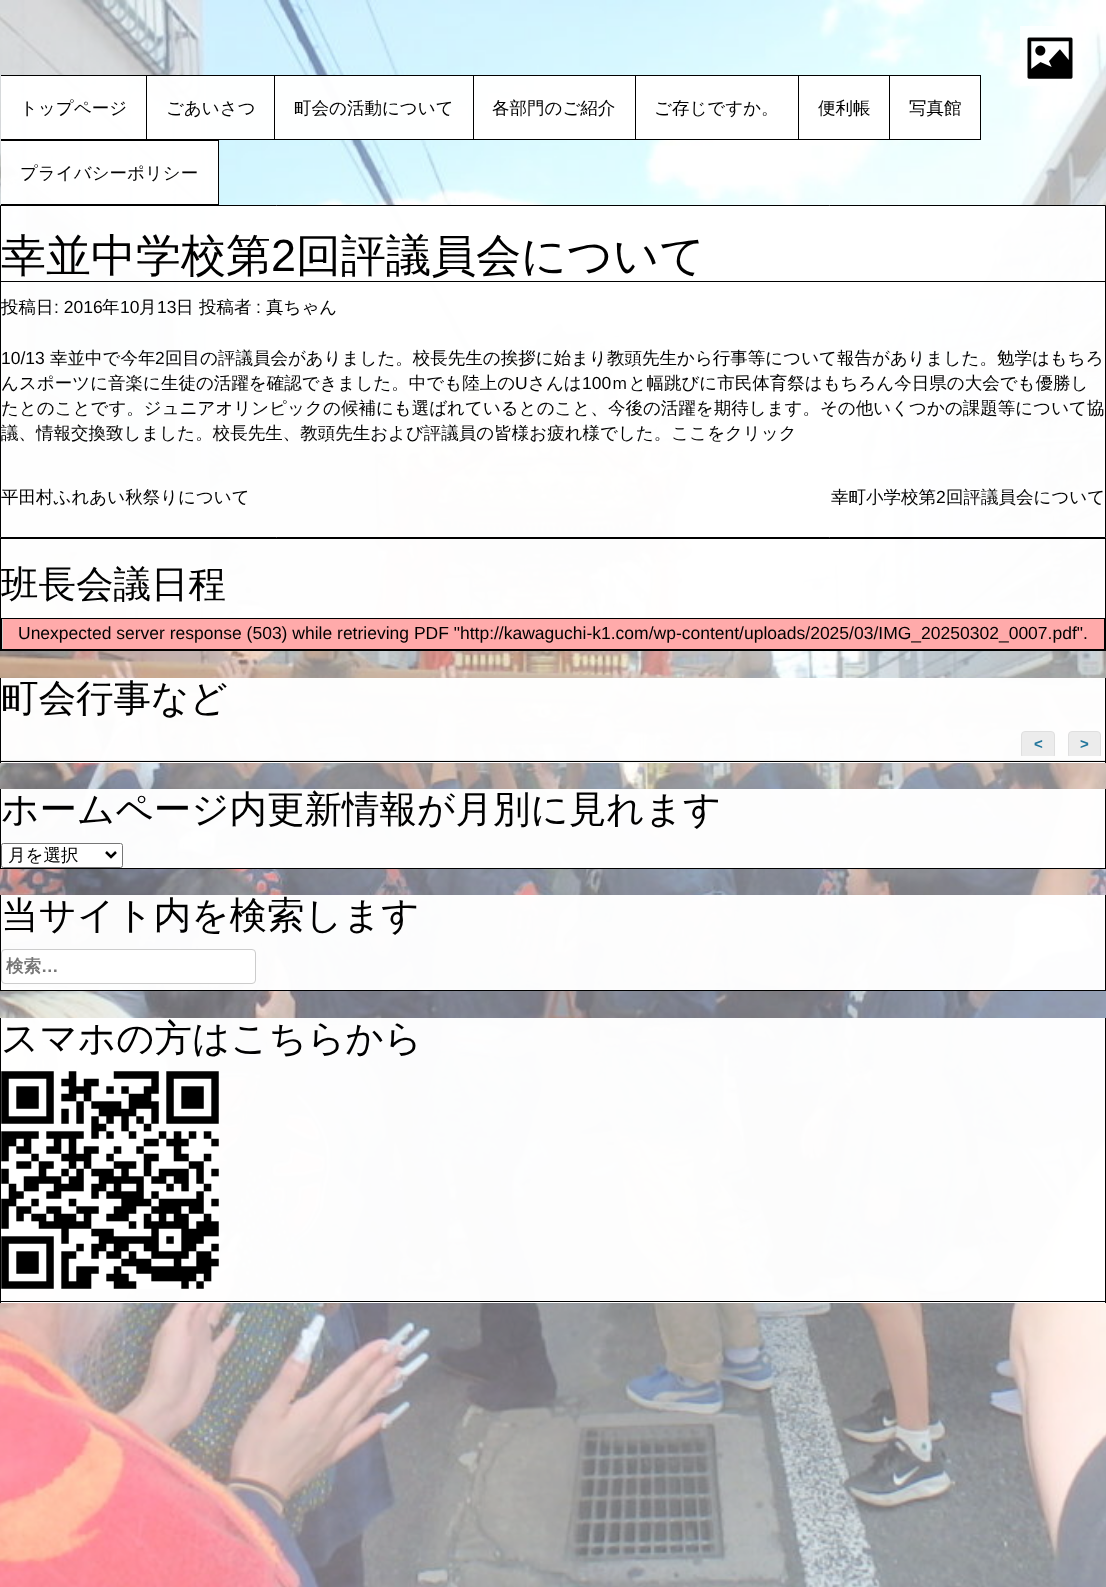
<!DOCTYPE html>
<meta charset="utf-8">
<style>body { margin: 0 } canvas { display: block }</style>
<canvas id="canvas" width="1106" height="1587"></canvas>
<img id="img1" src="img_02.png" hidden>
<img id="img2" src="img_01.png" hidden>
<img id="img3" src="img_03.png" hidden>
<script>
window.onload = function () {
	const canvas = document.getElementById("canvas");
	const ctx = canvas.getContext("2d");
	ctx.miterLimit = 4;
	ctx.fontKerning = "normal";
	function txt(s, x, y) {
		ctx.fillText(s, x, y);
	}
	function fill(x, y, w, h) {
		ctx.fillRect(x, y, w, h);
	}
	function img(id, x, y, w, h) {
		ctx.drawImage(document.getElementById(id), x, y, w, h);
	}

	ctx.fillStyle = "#FFFFFF";
	fill(0, 0, 1106, 1587);
	img("img1", 0, 0, 1106, 1587);
	ctx.fillStyle = "rgba(255, 255, 255, 0.75)";
	fill(1020, 26, 36, 60);
	img("img2", 1027, 37, 46, 42);
	ctx.fillStyle = "rgba(255, 255, 255, 0.98)";
	fill(1, 76, 147, 63);
	ctx.fillStyle = "#000000";
	fill(1, 75, 980, 1);
	fill(146, 75, 1, 65);
	fill(1, 139, 147, 1);
	ctx.fillStyle = "rgba(255, 255, 255, 0.98)";
	fill(148, 76, 126, 63);
	ctx.fillStyle = "#000000";
	fill(274, 75, 1, 65);
	fill(148, 139, 127, 1);
	ctx.fillStyle = "rgba(255, 255, 255, 0.98)";
	fill(275, 76, 198, 63);
	ctx.fillStyle = "#000000";
	fill(473, 75, 1, 65);
	fill(275, 139, 199, 1);
	ctx.fillStyle = "rgba(255, 255, 255, 0.98)";
	fill(474, 76, 161, 63);
	ctx.fillStyle = "#000000";
	fill(635, 75, 1, 65);
	fill(474, 139, 162, 1);
	ctx.fillStyle = "rgba(255, 255, 255, 0.98)";
	fill(636, 76, 162, 63);
	ctx.fillStyle = "#000000";
	fill(798, 75, 1, 65);
	fill(636, 139, 163, 1);
	ctx.fillStyle = "rgba(255, 255, 255, 0.98)";
	fill(799, 76, 90, 63);
	ctx.fillStyle = "#000000";
	fill(889, 75, 1, 65);
	fill(799, 139, 91, 1);
	ctx.fillStyle = "rgba(255, 255, 255, 0.98)";
	fill(890, 76, 90, 63);
	ctx.fillStyle = "#000000";
	fill(980, 75, 1, 65);
	fill(890, 139, 91, 1);
	ctx.fillStyle = "rgba(255, 255, 255, 0.98)";
	fill(1, 141, 217, 63);
	ctx.fillStyle = "#000000";
	fill(1, 140, 218, 1);
	fill(218, 140, 1, 65);
	fill(1, 204, 218, 1);
	ctx.fillStyle = "rgba(255, 255, 255, 0.98)";
	ctx.beginPath();
	ctx.rect(0.5, 205.5, 1105, 332);
	ctx.fill();
	ctx.strokeStyle = "#000000";
	ctx.stroke();
	ctx.fillStyle = "#000000";
	fill(1, 281, 1104, 1);
	ctx.fillStyle = "rgba(255, 255, 255, 0.98)";
	fill(1, 539, 1104, 79);
	ctx.strokeRect(0.5, 538.5, 1105, 112);
	ctx.fillStyle = "#D3D3D3";
	fill(2, 619, 1, 30);
	ctx.strokeRect(1.5, 618.5, 1103, 31);
	ctx.fillStyle = "#FFAAAA";
	fill(3, 619, 1101, 30);
	ctx.fillStyle = "rgba(255, 255, 255, 0.98)";
	fill(1, 678, 1104, 85);
	ctx.fillStyle = "#000000";
	fill(1105, 678, 1, 85);
	fill(0, 761, 1106, 1);
	fill(0, 678, 1, 85);
	ctx.save();
	ctx.beginPath();
	ctx.rect(1, 731, 1104, 25);
	ctx.clip();
	ctx.fillStyle = "#ECECEC";
	ctx.beginPath();
	ctx.roundRect(1021.5, 731.5, 33, 27, 3.5);
	ctx.fill();
	ctx.strokeStyle = "#DFDFDF";
	ctx.stroke();
	ctx.beginPath();
	ctx.roundRect(1068.5, 731.5, 32, 27, 3.5);
	ctx.fill();
	ctx.stroke();
	ctx.restore();
	ctx.fillStyle = "#ECECEC";
	fill(1, 760, 1104, 1);
	ctx.fillStyle = "rgba(255, 255, 255, 0.98)";
	fill(1, 789, 1104, 79);
	ctx.fillStyle = "#000000";
	fill(1105, 789, 1, 80);
	fill(0, 868, 1106, 1);
	fill(0, 789, 1, 80);
	ctx.fillStyle = "#FFFFFF";
	ctx.beginPath();
	ctx.roundRect(1.5, 843.5, 121, 24, 2);
	ctx.fill();
	ctx.strokeStyle = "#767676";
	ctx.stroke();
	ctx.beginPath();
	ctx.moveTo(106, 852);
	ctx.lineTo(111, 857);
	ctx.lineTo(116, 852);
	ctx.strokeStyle = "#000000";
	ctx.lineWidth = 2.5;
	ctx.stroke();
	ctx.fillStyle = "rgba(255, 255, 255, 0.98)";
	fill(1, 895, 1104, 95);
	ctx.fillStyle = "#000000";
	fill(1105, 895, 1, 96);
	fill(0, 990, 1106, 1);
	fill(0, 895, 1, 96);
	ctx.fillStyle = "#FFFFFF";
	ctx.beginPath();
	ctx.roundRect(1.5, 949.5, 254, 34, 3.5);
	ctx.fill();
	ctx.strokeStyle = "#CCCCCC";
	ctx.lineWidth = 1;
	ctx.stroke();
	ctx.fillStyle = "rgba(255, 255, 255, 0.98)";
	fill(1, 1018, 1104, 285);
	ctx.fillStyle = "#000000";
	fill(1105, 1018, 1, 285);
	fill(0, 1301, 1106, 1);
	fill(0, 1018, 1, 285);
	img("img3", 1, 1071, 218, 218);
	ctx.font = "500 17.5px WenQuanYi Zen Hei";
	txt("トップページ", 20, 114);
	txt("ごあいさつ", 166, 114);
	txt("町会の活動について", 294, 114);
	txt("各部門のご紹介", 492, 114);
	txt("ご存じですか。", 654, 114);
	txt("便利帳", 818, 114);
	txt("写真館", 909, 114);
	txt("プライバシーポリシー", 20, 179);
	ctx.font = "500 45px WenQuanYi Zen Hei";
	txt("幸並中学校第", 1, 271);
	ctx.font = "45px Liberation Sans";
	txt("2", 271, 271);
	ctx.font = "500 45px WenQuanYi Zen Hei";
	txt("回評議員会について", 296, 271);
	ctx.font = "500 17.5px WenQuanYi Zen Hei";
	txt("投稿日", 1, 313);
	ctx.font = "17.5px Liberation Sans";
	txt(": 2016", 54, 313);
	ctx.font = "500 17.5px WenQuanYi Zen Hei";
	txt("年", 102, 313);
	ctx.font = "17.5px Liberation Sans";
	txt("10", 120, 313);
	ctx.font = "500 17.5px WenQuanYi Zen Hei";
	txt("月", 139, 313);
	ctx.font = "17.5px Liberation Sans";
	txt("13", 157, 313);
	ctx.font = "500 17.5px WenQuanYi Zen Hei";
	txt("日", 176, 313);
	txt("投稿者", 199, 313);
	ctx.font = "17.5px Liberation Sans";
	txt(":", 256, 313);
	ctx.font = "500 17.5px WenQuanYi Zen Hei";
	txt("真ちゃん", 266, 313);
	ctx.font = "17.5px Liberation Sans";
	txt("10/13", 1, 364);
	ctx.font = "500 17.5px WenQuanYi Zen Hei";
	txt("幸並中で今年", 50, 364);
	ctx.font = "17.5px Liberation Sans";
	txt("2", 155, 364);
	ctx.font = "500 17.5px WenQuanYi Zen Hei";
	txt("回目の評議員会がありました。校長先生の挨拶に始まり教頭先生から行事等について報告がありました。勉学はもちろ", 165, 364);
	txt("んスポーツに音楽に生徒の活躍を確認できました。中でも陸上の", 1, 389);
	ctx.font = "17.5px Liberation Sans";
	txt("U", 515, 389);
	ctx.font = "500 17.5px WenQuanYi Zen Hei";
	txt("さんは", 528, 389);
	ctx.font = "17.5px Liberation Sans";
	txt("100", 582, 389);
	ctx.font = "500 17.5px WenQuanYi Zen Hei";
	txt("ｍと幅跳びに市民体育祭はもちろん今日県の大会でも優勝し", 611, 389);
	txt("たとのことです。ジュニアオリンピックの候補にも選ばれているとのこと、今後の活躍を期待します。その他いくつかの課題等について協", 1, 414);
	txt("議、情報交換致しました。校長先生、教頭先生および評議員の皆様お疲れ様でした。ここをクリック", 1, 439);
	txt("平田村ふれあい秋祭りについて", 1, 503);
	txt("幸町小学校第", 831, 503);
	ctx.font = "17.5px Liberation Sans";
	txt("2", 936, 503);
	ctx.font = "500 17.5px WenQuanYi Zen Hei";
	txt("回評議員会について", 946, 503);
	ctx.font = "500 37.5px WenQuanYi Zen Hei";
	txt("班長会議日程", 1, 597);
	ctx.font = "17.5px Liberation Sans";
	txt("Unexpected server response (503) while retrieving PDF \"http://kawaguchi-k1.com/wp-content/uploads/2025/03/IMG_20250302_0007.pdf\".", 18, 639);
	ctx.font = "500 37.5px WenQuanYi Zen Hei";
	txt("町会行事など", 1, 711);
	ctx.font = "bold 15px Liberation Sans";
	ctx.fillStyle = "#21759B";
	txt("<", 1034, 749);
	txt(">", 1080, 749);
	ctx.font = "500 37.5px WenQuanYi Zen Hei";
	ctx.fillStyle = "#000000";
	txt("ホームページ内更新情報が月別に見れます", 1, 822);
	ctx.font = "500 17.5px WenQuanYi Zen Hei";
	txt("月を選択", 8, 861);
	ctx.font = "500 37.5px WenQuanYi Zen Hei";
	txt("当サイト内を検索します", 1, 928);
	ctx.font = "bold 17.5px WenQuanYi Zen Hei";
	ctx.fillStyle = "#757575";
	txt("検索", 6, 972);
	ctx.font = "bold 17.5px Liberation Sans";
	txt("…", 41, 972);
	ctx.font = "500 37.5px WenQuanYi Zen Hei";
	ctx.fillStyle = "#000000";
	txt("スマホの方はこちらから", 1, 1051);
};
</script>
